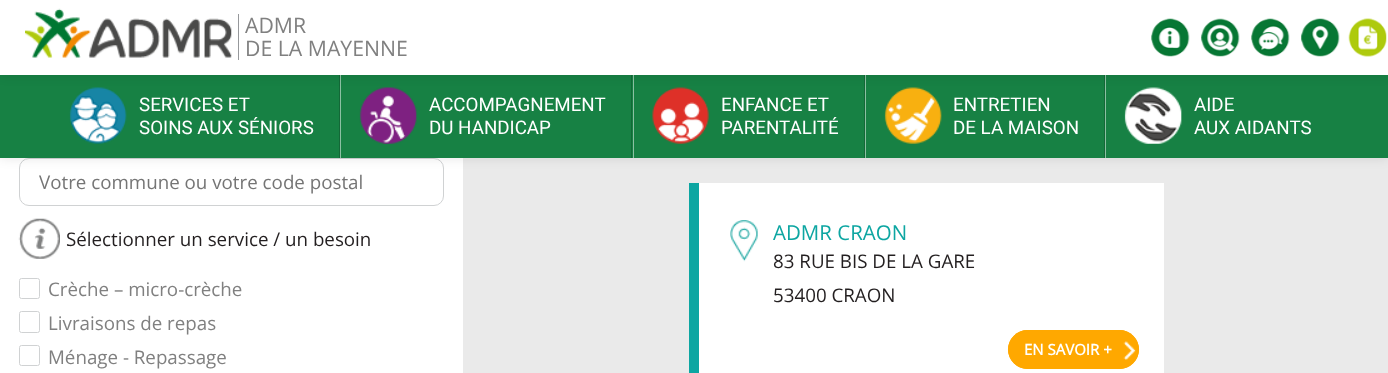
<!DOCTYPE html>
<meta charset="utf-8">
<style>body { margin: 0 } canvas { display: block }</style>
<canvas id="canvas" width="1388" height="373"></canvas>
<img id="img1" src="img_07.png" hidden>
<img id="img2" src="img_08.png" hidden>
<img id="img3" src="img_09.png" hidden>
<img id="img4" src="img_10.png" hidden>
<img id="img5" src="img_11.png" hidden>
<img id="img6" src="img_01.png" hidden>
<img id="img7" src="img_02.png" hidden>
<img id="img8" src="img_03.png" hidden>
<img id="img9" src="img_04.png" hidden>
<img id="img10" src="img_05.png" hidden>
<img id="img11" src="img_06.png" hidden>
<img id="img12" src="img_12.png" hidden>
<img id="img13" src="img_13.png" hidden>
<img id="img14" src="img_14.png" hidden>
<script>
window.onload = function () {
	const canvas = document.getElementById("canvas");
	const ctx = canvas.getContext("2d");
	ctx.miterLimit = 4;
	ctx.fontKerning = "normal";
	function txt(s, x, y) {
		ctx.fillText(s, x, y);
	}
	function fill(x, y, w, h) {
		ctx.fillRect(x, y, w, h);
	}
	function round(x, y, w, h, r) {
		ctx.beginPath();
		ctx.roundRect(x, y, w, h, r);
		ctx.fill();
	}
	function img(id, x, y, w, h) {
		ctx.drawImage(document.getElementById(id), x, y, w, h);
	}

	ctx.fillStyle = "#EAEAEA";
	fill(0, 0, 1388, 373);
	ctx.fillStyle = "#FFFFFF";
	fill(0, 158, 463, 215);
	ctx.beginPath();
	ctx.roundRect(19.5, 158.5, 424, 47, 9.5);
	ctx.strokeStyle = "#D0D2D3";
	ctx.stroke();
	ctx.save();
	ctx.beginPath();
	ctx.moveTo(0, 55);
	ctx.lineTo(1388, 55);
	ctx.lineTo(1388, 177);
	ctx.lineTo(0, 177);
	ctx.closePath();
	ctx.moveTo(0, 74);
	ctx.lineTo(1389, 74);
	ctx.lineTo(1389, 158);
	ctx.lineTo(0, 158);
	ctx.closePath();
	ctx.clip("evenodd");
	ctx.fillStyle = "rgba(0, 0, 0, 0.1)";
	ctx.filter = "blur(6px)";
	ctx.beginPath();
	ctx.rect(0, 74, 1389, 84);
	ctx.fill();
	ctx.filter = "none";
	ctx.restore();
	ctx.fillStyle = "rgba(0, 118, 50, 0.9)";
	fill(0, 75, 1388, 83);
	img("img1", 69, 87, 58, 57);
	ctx.fillStyle = "#136837";
	fill(339, 75, 1, 83);
	img("img2", 359, 87, 58, 57);
	fill(631, 75, 1, 83);
	ctx.fillStyle = "#8BC0A2";
	fill(340, 75, 1, 83);
	img("img3", 652, 87, 57, 57);
	ctx.fillStyle = "#136837";
	fill(864, 75, 1, 83);
	ctx.fillStyle = "#8BC0A2";
	fill(633, 75, 1, 83);
	img("img4", 884, 87, 58, 57);
	ctx.fillStyle = "#136837";
	fill(1104, 75, 1, 83);
	ctx.fillStyle = "#8BC0A2";
	fill(865, 75, 1, 83);
	img("img5", 1124, 87, 58, 57);
	fill(1105, 75, 1, 83);
	ctx.fillStyle = "rgba(0, 0, 0, 0.1)";
	ctx.filter = "blur(6px)";
	ctx.beginPath();
	ctx.rect(0, 0, 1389, 75);
	ctx.fill();
	ctx.filter = "none";
	ctx.fillStyle = "#FFFFFF";
	fill(0, 0, 1388, 75);
	img("img6", 25, 8, 207, 50);
	ctx.fillStyle = "#96989B";
	fill(238, 14, 1, 46);
	img("img7", 1151, 18, 39, 39);
	img("img8", 1201, 18, 39, 39);
	img("img9", 1251, 18, 39, 39);
	img("img10", 1301, 18, 39, 39);
	img("img11", 1348, 18, 39, 39);
	img("img12", 18, 218, 42, 41);
	ctx.beginPath();
	ctx.roundRect(19.5, 280.5, 15, 15, 2);
	ctx.strokeStyle = "#767676";
	ctx.stroke();
	ctx.fillStyle = "#FFFFFF";
	ctx.beginPath();
	ctx.roundRect(19.5, 278.5, 20, 20, 2);
	ctx.fill();
	ctx.strokeStyle = "#D0D2D3";
	ctx.stroke();
	ctx.beginPath();
	ctx.roundRect(19.5, 311.5, 20, 21, 2);
	ctx.stroke();
	ctx.beginPath();
	ctx.roundRect(19.5, 348.5, 15, 15, 2);
	ctx.strokeStyle = "#767676";
	ctx.stroke();
	ctx.beginPath();
	ctx.roundRect(19.5, 345.5, 20, 20, 2);
	ctx.fill();
	ctx.strokeStyle = "#D0D2D3";
	ctx.stroke();
	fill(699, 183, 465, 190);
	img("img13", 730, 220, 28, 42);
	ctx.fillStyle = "#0DA6A2";
	fill(689, 183, 10, 190);
	ctx.fillStyle = "#FFA800";
	round(1008, 330, 131, 39, 19.5);
	img("img14", 1123, 341, 13, 19);
	ctx.beginPath();
	ctx.roundRect(1008.5, 330.5, 130, 38, 19);
	ctx.strokeStyle = "#FFA800";
	ctx.stroke();
	ctx.font = "21.25px Open Sans";
	ctx.fillStyle = "#808080";
	txt("ADMR", 245, 33);
	txt("DE LA MAYENNE", 245, 56);
	ctx.font = "18.75px Roboto";
	ctx.fillStyle = "#FFFFFF";
	txt("SERVICES ET", 139, 111);
	txt("SOINS AUX SÉNIORS", 139, 134);
	txt("ACCOMPAGNEMENT", 429, 111);
	txt("DU HANDICAP", 429, 134);
	txt("ENFANCE ET", 721, 111);
	txt("PARENTALITÉ", 721, 134);
	txt("ENTRETIEN", 953, 111);
	txt("DE LA MAISON", 953, 134);
	txt("AIDE", 1194, 111);
	txt("AUX AIDANTS", 1194, 134);
	ctx.font = "18.75px Open Sans";
	ctx.fillStyle = "#757575";
	txt("Votre commune ou votre code postal", 39, 189);
	ctx.fillStyle = "#231F20";
	txt("Sélectionner un service / un besoin", 66, 246);
	ctx.fillStyle = "#808080";
	txt("Crèche – micro-crèche", 48, 296);
	txt("Livraisons de repas", 48, 330);
	txt("Ménage - Repassage", 48, 364);
	ctx.font = "20.5px Open Sans";
	ctx.fillStyle = "#0DA6A2";
	txt("ADMR CRAON", 773, 240);
	ctx.font = "18.75px Open Sans";
	ctx.fillStyle = "#231F20";
	txt("83 RUE BIS DE LA GARE", 773, 268);
	txt("53400 CRAON", 773, 302);
	ctx.font = "bold 15px Open Sans";
	ctx.fillStyle = "#FFFFFF";
	txt("EN SAVOIR +", 1024, 355);
};
</script>
